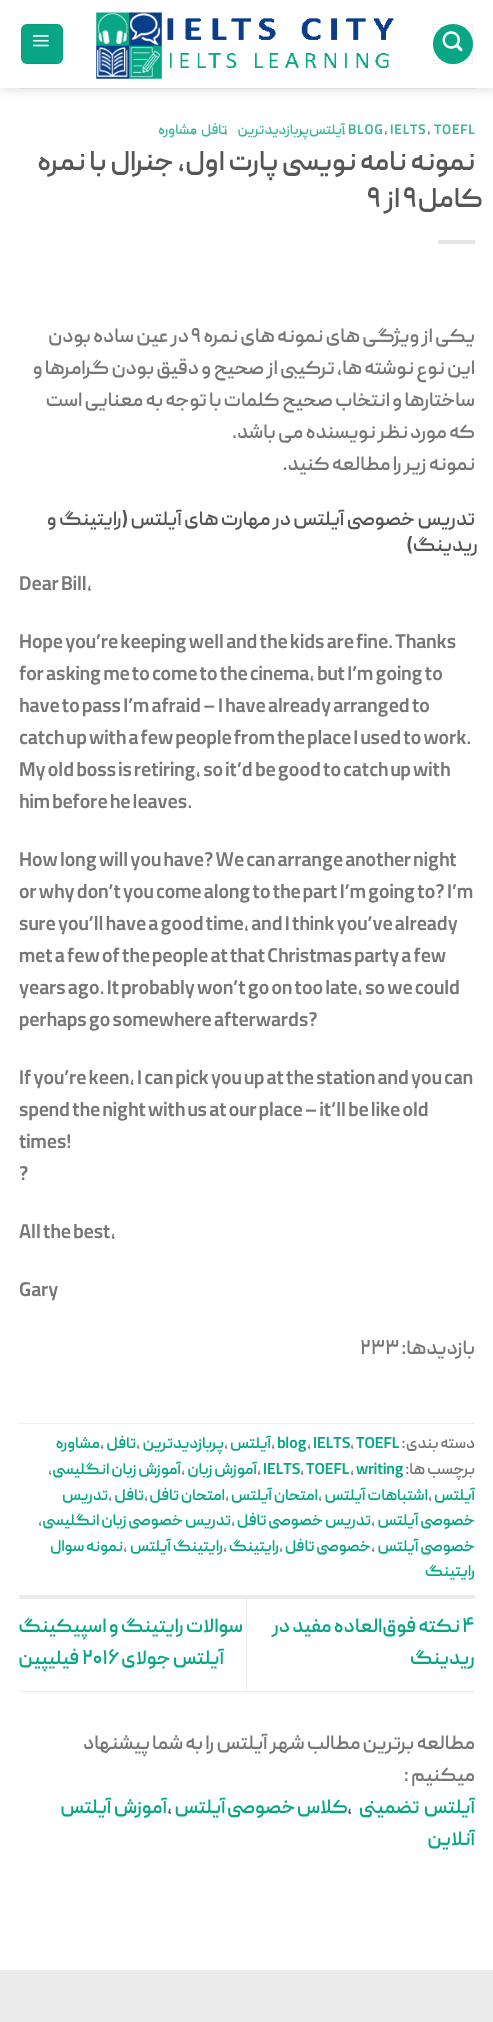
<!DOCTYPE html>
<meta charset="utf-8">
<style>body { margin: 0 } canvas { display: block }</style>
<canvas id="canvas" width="493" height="2022"></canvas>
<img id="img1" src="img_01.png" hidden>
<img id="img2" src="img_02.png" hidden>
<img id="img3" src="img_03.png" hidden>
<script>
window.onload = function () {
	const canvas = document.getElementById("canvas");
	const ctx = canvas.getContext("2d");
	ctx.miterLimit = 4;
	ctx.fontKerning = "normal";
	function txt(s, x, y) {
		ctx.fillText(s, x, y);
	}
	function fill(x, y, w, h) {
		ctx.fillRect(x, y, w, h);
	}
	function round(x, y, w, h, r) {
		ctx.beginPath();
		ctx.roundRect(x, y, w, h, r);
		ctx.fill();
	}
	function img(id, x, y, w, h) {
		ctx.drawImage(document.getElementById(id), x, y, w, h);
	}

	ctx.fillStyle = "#FFFFFF";
	fill(0, 0, 493, 2022);
	ctx.save();
	ctx.beginPath();
	ctx.moveTo(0, 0);
	ctx.lineTo(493, 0);
	ctx.lineTo(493, 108);
	ctx.lineTo(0, 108);
	ctx.closePath();
	ctx.moveTo(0, 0);
	ctx.lineTo(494, 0);
	ctx.lineTo(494, 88);
	ctx.lineTo(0, 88);
	ctx.closePath();
	ctx.clip("evenodd");
	ctx.fillStyle = "rgba(0, 0, 0, 0.15)";
	ctx.filter = "blur(6px)";
	ctx.beginPath();
	ctx.rect(1, 1, 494, 88);
	ctx.fill();
	ctx.filter = "none";
	ctx.restore();
	ctx.fillStyle = "#08A685";
	round(21, 24, 42, 40, 6);
	ctx.strokeStyle = "rgba(0, 0, 0, 0.05)";
	ctx.strokeRect(21.5, 24.5, 41, 39);
	img("img1", 32, 35, 17, 12);
	img("img2", 96, 12, 298, 67);
	ctx.beginPath();
	ctx.arc(453, 44, 20, 0, Math.PI * 2);
	ctx.fill();
	ctx.strokeRect(433.5, 24.5, 39, 39);
	img("img3", 442, 31, 21, 21);
	ctx.fillStyle = "#DFDFDF";
	fill(19, 88, 456, 1);
	ctx.fillStyle = "rgba(255, 255, 255, 0.9)";
	fill(0, 87, 493, 1);
	ctx.fillStyle = "#E6E6E6";
	fill(438, 240, 37, 4);
	ctx.fillStyle = "#ECECEC";
	fill(19, 1423, 456, 1);
	fill(19, 1595, 456, 4);
	fill(19, 1691, 456, 1);
	fill(246, 1599, 1, 92);
	fill(0, 1970, 493, 52);
	ctx.letterSpacing = "0.75px";
	ctx.font = "600 14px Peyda";
	ctx.fillStyle = "#39B89D";
	txt("BLOG", 348, 134);
	txt("IELTS", 390, 134);
	txt("TOEFL", 434, 134);
	ctx.fillStyle = "#777777";
	txt(",", 192, 134);
	ctx.direction = "rtl";
	ctx.fillStyle = "#39B89D";
	txt("مشاوره", 197, 134);
	ctx.direction = "ltr";
	ctx.fillStyle = "#777777";
	txt(",", 224, 134);
	ctx.direction = "rtl";
	ctx.fillStyle = "#39B89D";
	txt("تافل", 227, 134);
	ctx.direction = "ltr";
	ctx.fillStyle = "#777777";
	txt(",", 300, 134);
	txt(",", 342, 134);
	ctx.direction = "rtl";
	ctx.fillStyle = "#39B89D";
	txt("آیلتس", 345, 134);
	txt("پربازدیدترین", 309, 134);
	ctx.direction = "ltr";
	ctx.fillStyle = "#777777";
	txt(",", 384, 134);
	txt(",", 427, 134);
	ctx.letterSpacing = "0px";
	ctx.wordSpacing = "0.5px";
	ctx.direction = "rtl";
	ctx.font = "600 28px Peyda";
	ctx.fillStyle = "#555555";
	txt("نمونه نامه نویسی پارت اول، جنرال با نمره", 475, 170);
	ctx.wordSpacing = "0px";
	ctx.direction = "ltr";
	txt("۹", 367, 207);
	ctx.direction = "rtl";
	txt("از", 400, 207);
	ctx.direction = "ltr";
	txt("۹", 403, 207);
	ctx.direction = "rtl";
	txt("کامل", 483, 207);
	ctx.font = "600 20px Peyda";
	ctx.fillStyle = "#777777";
	txt("در عین ساده بودن", 189, 342);
	ctx.direction = "ltr";
	txt("۹", 191, 342);
	ctx.direction = "rtl";
	txt("یکی از ویژگی های نمونه های نمره", 475, 342);
	txt("این نوع نوشته ها، ترکیبی از صحیح و دقیق بودن گرامرها و", 475, 374);
	txt("ساختارها و انتخاب صحیح کلمات با توجه به معنایی است", 475, 406);
	txt("که مورد نظر نویسنده می باشد.", 475, 438);
	txt("نمونه زیر را مطالعه کنید.", 475, 470);
	ctx.fillStyle = "#555555";
	txt("تدریس خصوصی آیلتس در مهارت های آیلتس (رایتینگ و", 475, 525);
	txt("ریدینگ)", 478, 551);
	ctx.direction = "ltr";
	ctx.fillStyle = "#777777";
	txt("Dear Bill,", 19, 590);
	txt("Hope you’re keeping well and the kids are fine. Thanks", 19, 648);
	txt("for asking me to come to the cinema, but I’m going to", 19, 680);
	txt("have to pass I’m afraid – I have already arranged to", 19, 712);
	txt("catch up with a few people from the place I used to work.", 19, 744);
	txt("My old boss is retiring, so it’d be good to catch up with", 19, 776);
	txt("him before he leaves.", 19, 808);
	txt("How long will you have? We can arrange another night", 19, 866);
	txt("or why don’t you come along to the part I’m going to? I’m", 19, 898);
	txt("sure you’ll have a good time, and I think you’ve already", 19, 930);
	txt("met a few of the people at that Christmas party a few", 19, 962);
	txt("years ago. It probably won’t go on too late, so we could", 19, 994);
	txt("perhaps go somewhere afterwards?", 19, 1026);
	txt("If you’re keen, I can pick you up at the station and you can", 19, 1084);
	txt("spend the night with us at our place – it’ll be like old", 19, 1116);
	txt("times!", 19, 1148);
	txt("?", 19, 1180);
	txt("All the best,", 19, 1238);
	txt("Gary", 19, 1296);
	txt("۲۳۳", 360, 1354);
	ctx.direction = "rtl";
	txt("بازدیدها:", 475, 1354);
	ctx.font = "600 16px Peyda";
	ctx.fillStyle = "#08A685";
	txt("مشاوره", 100, 1448);
	ctx.direction = "ltr";
	ctx.fillStyle = "#777777";
	txt(",", 100, 1448);
	ctx.direction = "rtl";
	ctx.fillStyle = "#08A685";
	txt("تافل", 136, 1448);
	ctx.direction = "ltr";
	ctx.fillStyle = "#777777";
	txt(",", 136, 1448);
	ctx.direction = "rtl";
	ctx.fillStyle = "#08A685";
	txt("پربازدیدترین", 224, 1448);
	ctx.direction = "ltr";
	ctx.fillStyle = "#777777";
	txt(",", 224, 1448);
	ctx.direction = "rtl";
	ctx.fillStyle = "#08A685";
	txt("آیلتس", 271, 1448);
	ctx.direction = "ltr";
	ctx.fillStyle = "#777777";
	txt(",", 271, 1448);
	ctx.fillStyle = "#08A685";
	txt("blog", 277, 1448);
	ctx.fillStyle = "#777777";
	txt(",", 307, 1448);
	ctx.fillStyle = "#08A685";
	txt("IELTS", 313, 1448);
	ctx.fillStyle = "#777777";
	txt(",", 350, 1448);
	ctx.fillStyle = "#08A685";
	txt("TOEFL", 356, 1448);
	ctx.direction = "rtl";
	ctx.fillStyle = "#777777";
	txt("دسته بندی:", 475, 1448);
	ctx.direction = "ltr";
	txt(",", 48, 1474);
	ctx.direction = "rtl";
	ctx.fillStyle = "#08A685";
	txt("آموزش زبان انگلیسی", 181, 1474);
	ctx.direction = "ltr";
	ctx.fillStyle = "#777777";
	txt(",", 181, 1474);
	ctx.direction = "rtl";
	ctx.fillStyle = "#08A685";
	txt("آموزش زبان", 257, 1474);
	ctx.direction = "ltr";
	ctx.fillStyle = "#777777";
	txt(",", 257, 1474);
	ctx.fillStyle = "#08A685";
	txt("IELTS", 263, 1474);
	ctx.fillStyle = "#777777";
	txt(",", 300, 1474);
	ctx.fillStyle = "#08A685";
	txt("TOEFL", 306, 1474);
	ctx.fillStyle = "#777777";
	txt(",", 350, 1474);
	ctx.fillStyle = "#08A685";
	txt("writing", 356, 1474);
	ctx.direction = "rtl";
	ctx.fillStyle = "#777777";
	txt("برچسب ها:", 475, 1474);
	ctx.fillStyle = "#08A685";
	txt("تدریس", 108, 1500);
	ctx.direction = "ltr";
	ctx.fillStyle = "#777777";
	txt(",", 108, 1500);
	ctx.direction = "rtl";
	ctx.fillStyle = "#08A685";
	txt("تافل", 144, 1500);
	ctx.direction = "ltr";
	ctx.fillStyle = "#777777";
	txt(",", 144, 1500);
	ctx.direction = "rtl";
	ctx.fillStyle = "#08A685";
	txt("امتحان تافل", 225, 1500);
	ctx.direction = "ltr";
	ctx.fillStyle = "#777777";
	txt(",", 225, 1500);
	ctx.direction = "rtl";
	ctx.fillStyle = "#08A685";
	txt("امتحان آیلتس", 318, 1500);
	ctx.direction = "ltr";
	ctx.fillStyle = "#777777";
	txt(",", 318, 1500);
	ctx.direction = "rtl";
	ctx.fillStyle = "#08A685";
	txt("اشتباهات آیلتس", 428, 1500);
	ctx.direction = "ltr";
	ctx.fillStyle = "#777777";
	txt(",", 428, 1500);
	ctx.direction = "rtl";
	ctx.fillStyle = "#08A685";
	txt("آیلتس", 475, 1500);
	ctx.direction = "ltr";
	ctx.fillStyle = "#777777";
	txt(",", 38, 1525);
	ctx.direction = "rtl";
	ctx.fillStyle = "#08A685";
	txt("تدریس خصوصی زبان انگلیسی", 231, 1525);
	ctx.direction = "ltr";
	ctx.fillStyle = "#777777";
	txt(",", 231, 1525);
	ctx.direction = "rtl";
	ctx.fillStyle = "#08A685";
	txt("تدریس خصوصی تافل", 371, 1525);
	ctx.direction = "ltr";
	ctx.fillStyle = "#777777";
	txt(",", 371, 1525);
	ctx.direction = "rtl";
	ctx.fillStyle = "#08A685";
	txt("خصوصی آیلتس", 475, 1525);
	txt("نمونه سوال", 123, 1551);
	ctx.direction = "ltr";
	ctx.fillStyle = "#777777";
	txt(",", 123, 1551);
	ctx.direction = "rtl";
	ctx.fillStyle = "#08A685";
	txt("رایتینگ آیلتس", 223, 1551);
	ctx.direction = "ltr";
	ctx.fillStyle = "#777777";
	txt(",", 223, 1551);
	ctx.direction = "rtl";
	ctx.fillStyle = "#08A685";
	txt("رایتینگ", 279, 1551);
	ctx.direction = "ltr";
	ctx.fillStyle = "#777777";
	txt(",", 279, 1551);
	ctx.direction = "rtl";
	ctx.fillStyle = "#08A685";
	txt("خصوصی تافل", 371, 1551);
	ctx.direction = "ltr";
	ctx.fillStyle = "#777777";
	txt(",", 371, 1551);
	ctx.direction = "rtl";
	ctx.fillStyle = "#08A685";
	txt("خصوصی آیلتس", 475, 1551);
	txt("رایتینگ", 475, 1576);
	ctx.font = "600 20px Peyda";
	txt("سوالات رایتینگ و اسپیکینگ", 243, 1632);
	txt("فیلیپین", 79, 1664);
	ctx.direction = "ltr";
	txt("۲۰۱۶", 82, 1664);
	ctx.direction = "rtl";
	txt("آیلتس جولای", 224, 1664);
	txt("نکته فوق‌العاده مفید در", 460, 1632);
	ctx.direction = "ltr";
	txt("۴", 462, 1632);
	ctx.direction = "rtl";
	txt("ریدینگ", 475, 1664);
	ctx.fillStyle = "#777777";
	txt("مطالعه برترین مطالب شهر آیلتس را به شما پیشنهاد", 475, 1749);
	txt("میکنیم :", 475, 1781);
	ctx.fillStyle = "#08A685";
	txt("آموزش آیلتس", 167, 1813);
	ctx.direction = "ltr";
	ctx.fillStyle = "#555555";
	txt("،", 167, 1813);
	txt("،", 347, 1813);
	ctx.wordSpacing = "-1px";
	ctx.direction = "rtl";
	ctx.fillStyle = "#08A685";
	txt("کلاس خصوصی آیلتس", 348, 1813);
	ctx.wordSpacing = "2px";
	txt("آیلتس تضمینی", 475, 1813);
	ctx.wordSpacing = "0px";
	txt("آنلاین", 475, 1845);
};
</script>
